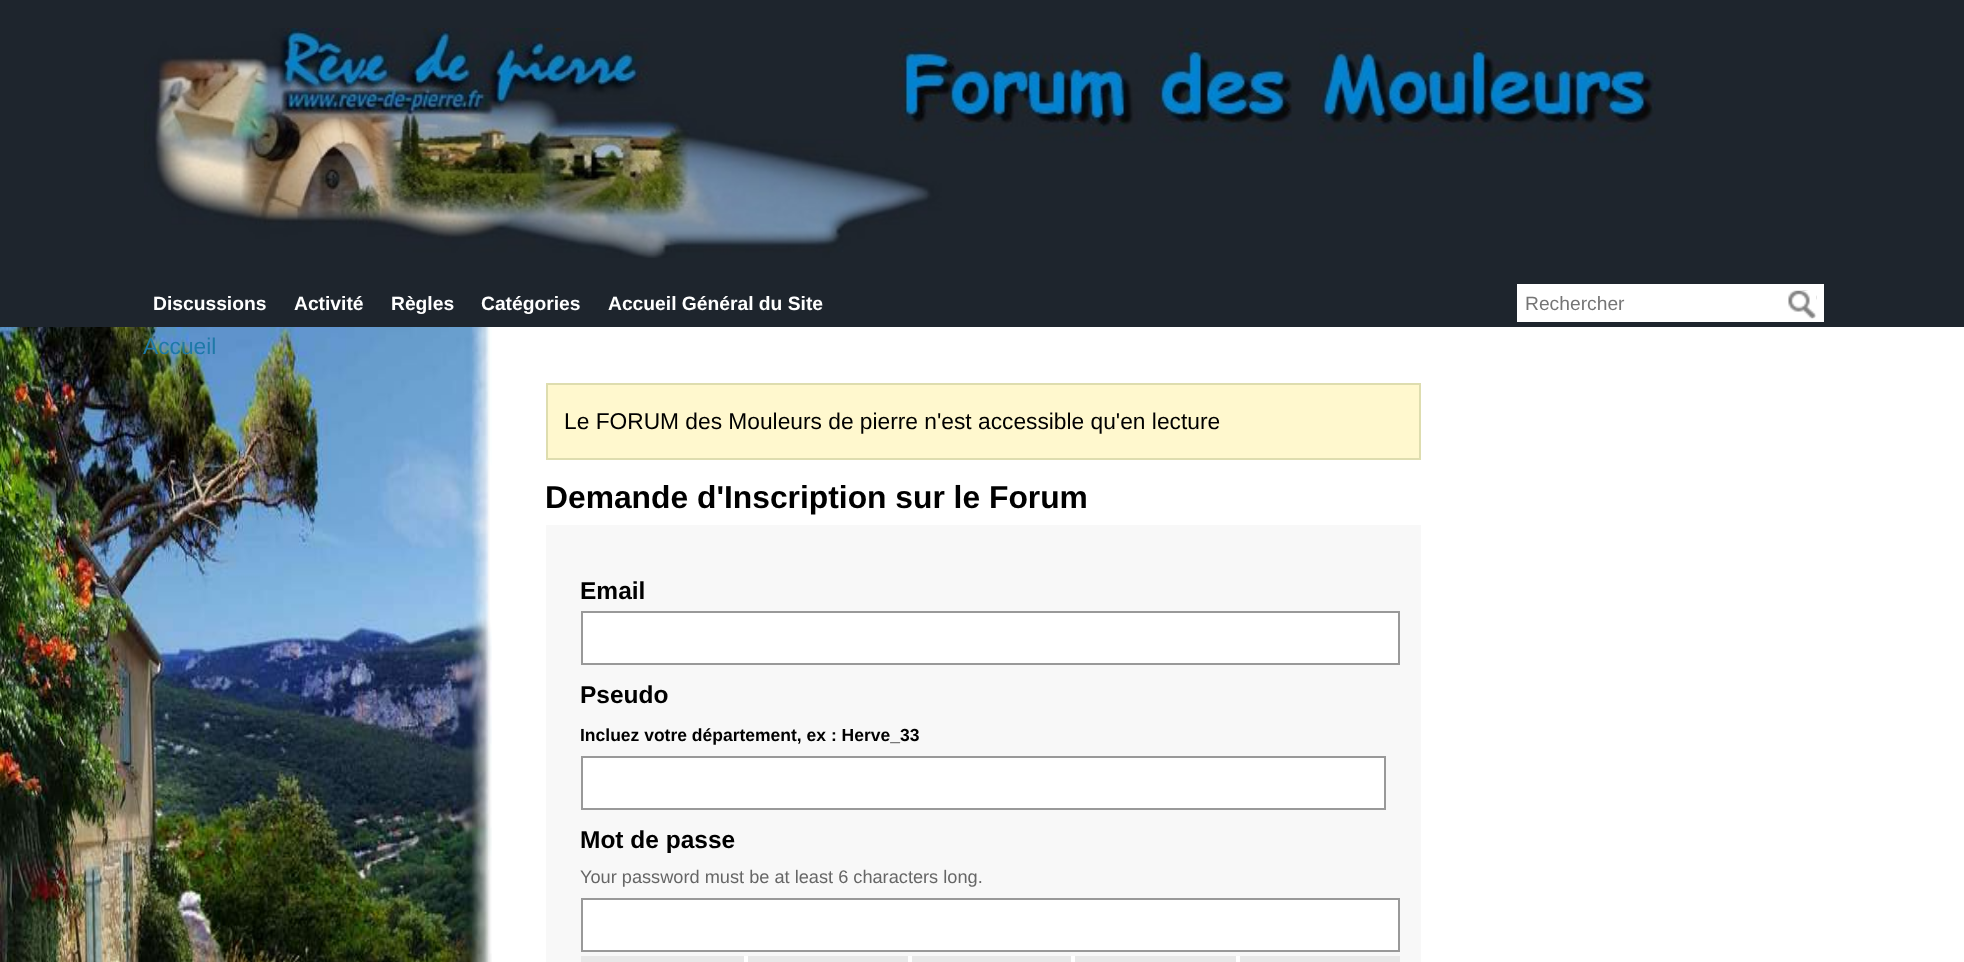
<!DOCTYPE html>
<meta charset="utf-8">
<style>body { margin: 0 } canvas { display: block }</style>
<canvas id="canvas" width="1964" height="962"></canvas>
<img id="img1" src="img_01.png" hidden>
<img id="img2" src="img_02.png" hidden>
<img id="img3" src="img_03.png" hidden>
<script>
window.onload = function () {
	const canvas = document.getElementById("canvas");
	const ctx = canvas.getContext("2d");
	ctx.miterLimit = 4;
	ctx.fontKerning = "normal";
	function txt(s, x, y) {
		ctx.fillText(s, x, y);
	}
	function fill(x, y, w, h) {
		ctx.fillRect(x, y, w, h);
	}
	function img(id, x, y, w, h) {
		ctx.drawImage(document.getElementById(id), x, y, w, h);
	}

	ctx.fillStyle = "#FFFFFF";
	fill(0, 0, 1964, 962);
	img("img1", 0, 327, 492, 635);
	ctx.fillStyle = "#1E252D";
	fill(0, 0, 1964, 327);
	img("img2", 144, 28, 1512, 230);
	ctx.fillStyle = "#FFFFFF";
	fill(1517, 284, 307, 38);
	img("img3", 1788, 290, 29, 29);
	ctx.fillStyle = "#FFF8CE";
	ctx.beginPath();
	ctx.rect(547, 384, 873, 75);
	ctx.fill();
	ctx.strokeStyle = "#DEDDAF";
	ctx.lineWidth = 2;
	ctx.stroke();
	ctx.fillStyle = "#F8F8F8";
	fill(546, 525, 875, 437);
	ctx.fillStyle = "#FFFFFF";
	ctx.beginPath();
	ctx.rect(582, 612, 817, 52);
	ctx.fill();
	ctx.strokeStyle = "#999999";
	ctx.stroke();
	ctx.beginPath();
	ctx.rect(582, 757, 803, 52);
	ctx.fill();
	ctx.stroke();
	ctx.beginPath();
	ctx.rect(582, 899, 817, 52);
	ctx.fill();
	ctx.stroke();
	ctx.fillStyle = "#E8E8E8";
	fill(581, 956, 819, 6);
	ctx.fillStyle = "#FFFFFF";
	fill(744, 956, 4, 6);
	fill(908, 956, 4, 6);
	fill(1071, 956, 4, 6);
	fill(1236, 956, 4, 6);
	ctx.font = "bold 19.25px Liberation Sans";
	txt("Discussions", 153, 310);
	txt("Activité", 294, 310);
	txt("Règles", 391, 310);
	txt("Catégories", 481, 310);
	txt("Accueil Général du Site", 608, 310);
	ctx.font = "19.25px Liberation Sans";
	ctx.fillStyle = "#757575";
	txt("Rechercher", 1525, 310);
	ctx.font = "22.75px Liberation Sans";
	ctx.fillStyle = "#1E79A7";
	txt("Accueil", 143, 354);
	ctx.fillStyle = "#000000";
	txt("Le FORUM des Mouleurs de pierre n'est accessible qu'en lecture", 564, 429);
	ctx.font = "bold 31.8px Liberation Sans";
	txt("Demande d'Inscription sur le Forum", 545, 508);
	ctx.font = "bold 24.5px Liberation Sans";
	txt("Email", 580, 599);
	txt("Pseudo", 580, 703);
	ctx.font = "bold 17.5px Liberation Sans";
	txt("Incluez votre département, ex : Herve_33", 580, 741);
	ctx.font = "bold 24.5px Liberation Sans";
	txt("Mot de passe", 580, 848);
	ctx.font = "18.2px Liberation Sans";
	ctx.fillStyle = "#666666";
	txt("Your password must be at least 6 characters long.", 580, 883);
};
</script>
